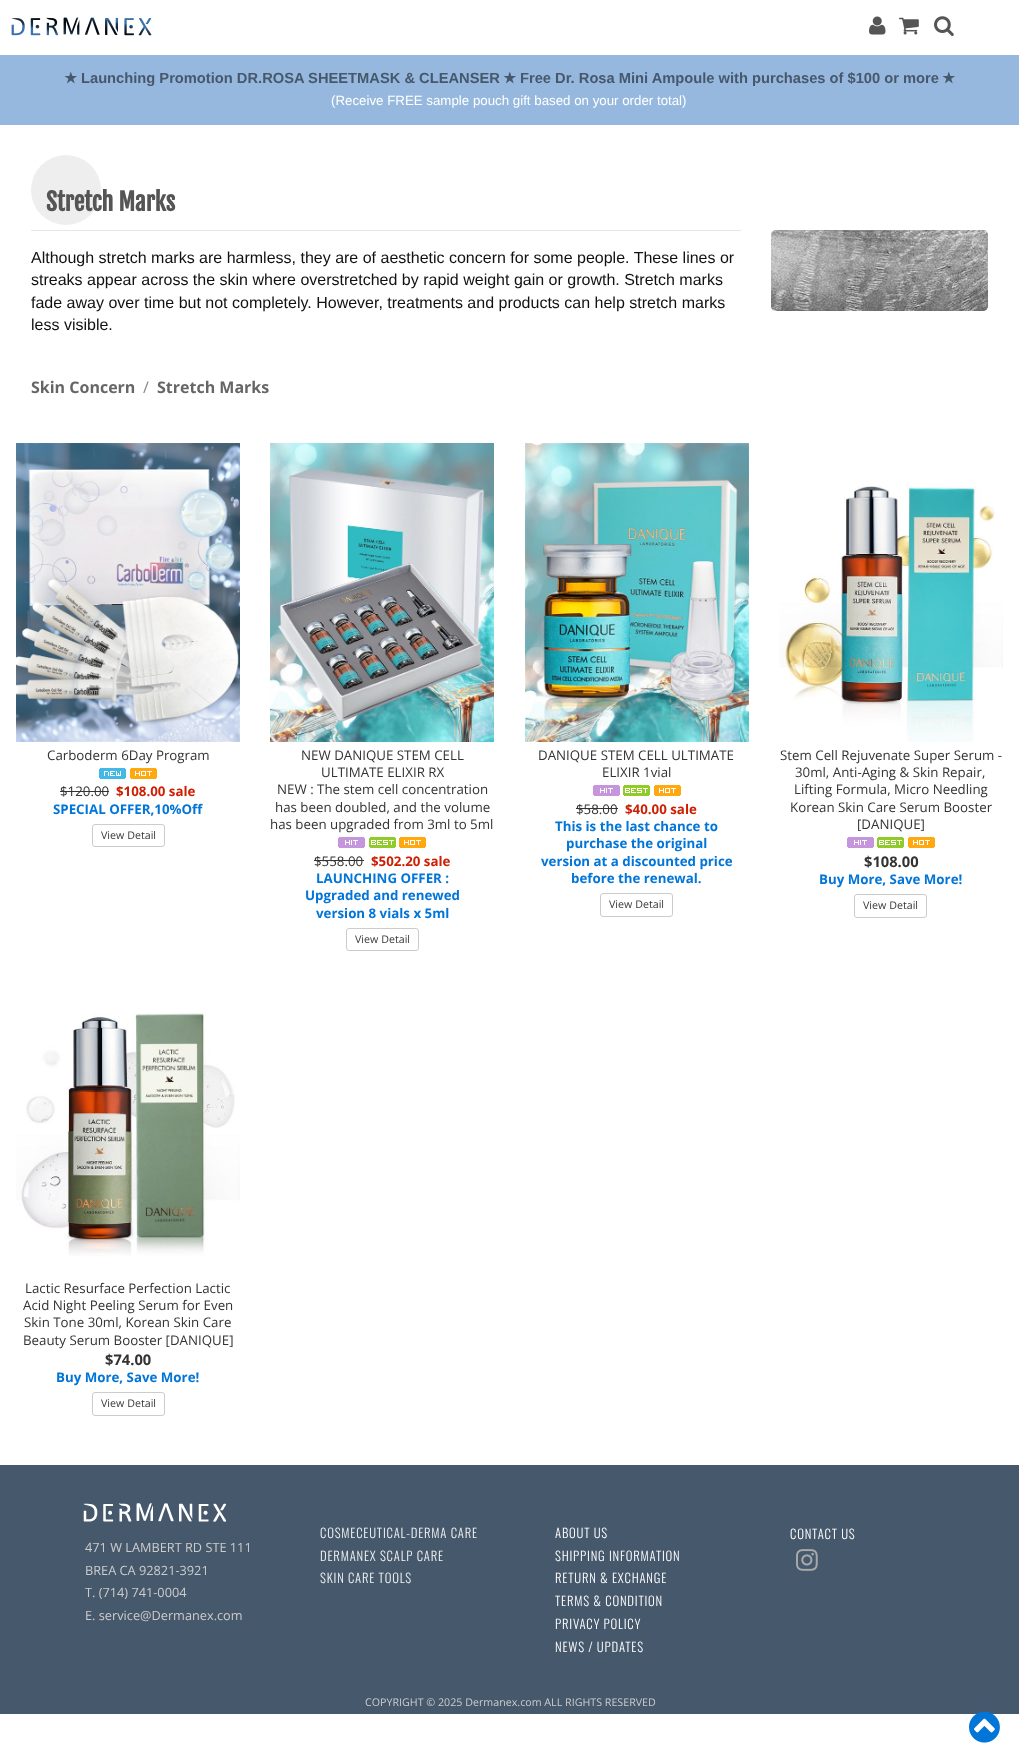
<!DOCTYPE html>
<meta charset="utf-8">
<style>body { margin: 0 } canvas { display: block }</style>
<canvas id="canvas" width="1019" height="1758"></canvas>
<img id="img1" src="img_01.png" hidden>
<img id="img2" src="img_02.png" hidden>
<img id="img3" src="img_03.png" hidden>
<img id="img4" src="img_04.png" hidden>
<img id="img5" src="img_05.png" hidden>
<img id="img6" src="img_06.png" hidden>
<img id="img7" src="img_07.png" hidden>
<img id="img8" src="img_08.png" hidden>
<img id="img9" src="img_09.png" hidden>
<img id="img10" src="img_10.png" hidden>
<img id="img11" src="img_11.png" hidden>
<img id="img12" src="img_12.png" hidden>
<img id="img13" src="img_13.png" hidden>
<img id="img14" src="img_14.png" hidden>
<img id="img15" src="img_15.png" hidden>
<img id="img16" src="img_16.png" hidden>
<img id="img17" src="img_17.png" hidden>
<script>
window.onload = function () {
	const canvas = document.getElementById("canvas");
	const ctx = canvas.getContext("2d");
	ctx.miterLimit = 4;
	ctx.fontKerning = "normal";
	function txt(s, x, y) {
		ctx.fillText(s, x, y);
	}
	function fill(x, y, w, h) {
		ctx.fillRect(x, y, w, h);
	}
	function img(id, x, y, w, h) {
		ctx.drawImage(document.getElementById(id), x, y, w, h);
	}

	ctx.fillStyle = "#FFFFFF";
	fill(0, 0, 1019, 1758);
	img("img1", 11, 17, 141, 19);
	img("img2", 869, 16, 17, 19);
	img("img3", 899, 17, 20, 18);
	img("img4", 934, 16, 20, 20);
	ctx.fillStyle = "#96B8DE";
	fill(0, 55, 1019, 70);
	ctx.fillStyle = "#EEEEEE";
	ctx.beginPath();
	ctx.arc(66, 190, 35, 0, Math.PI * 2);
	ctx.fill();
	ctx.fillStyle = "#E6E6E6";
	fill(31, 230, 710, 1);
	img("img5", 771, 230, 217, 81);
	img("img6", 16, 443, 224, 299);
	img("img7", 99, 768, 27, 11);
	img("img8", 130, 768, 27, 11);
	ctx.fillStyle = "#333333";
	fill(60, 791, 49, 1);
	ctx.beginPath();
	ctx.roundRect(92.5, 824.5, 72, 22, 2.5);
	ctx.strokeStyle = "#CCCCCC";
	ctx.stroke();
	img("img9", 270, 443, 224, 299);
	img("img10", 338, 837, 27, 11);
	img("img11", 369, 837, 27, 11);
	img("img8", 399, 837, 27, 11);
	fill(314, 860, 50, 1);
	ctx.beginPath();
	ctx.roundRect(346.5, 928.5, 72, 22, 2.5);
	ctx.stroke();
	img("img12", 525, 443, 224, 299);
	img("img10", 593, 785, 27, 11);
	img("img11", 623, 785, 27, 11);
	img("img8", 654, 785, 27, 11);
	fill(576, 808, 42, 1);
	ctx.beginPath();
	ctx.roundRect(600.5, 893.5, 72, 23, 2.5);
	ctx.stroke();
	img("img13", 779, 486, 224, 256);
	img("img10", 847, 837, 27, 11);
	img("img11", 877, 837, 27, 11);
	img("img8", 908, 837, 27, 11);
	ctx.beginPath();
	ctx.roundRect(854.5, 894.5, 72, 23, 2.5);
	ctx.stroke();
	img("img14", 16, 1012, 224, 244);
	ctx.beginPath();
	ctx.roundRect(92.5, 1392.5, 72, 23, 2.5);
	ctx.stroke();
	ctx.fillStyle = "#46586B";
	fill(0, 1465, 1019, 249);
	img("img15", 796, 1549, 22, 22);
	img("img16", 83, 1503, 143, 19);
	img("img17", 969, 1711, 31, 32);
	ctx.font = "bold 14.7px DejaVu Sans";
	txt("★", 64, 83);
	ctx.font = "bold 14.7px Liberation Sans";
	txt("Launching Promotion DR.ROSA SHEETMASK & CLEANSER", 81, 83);
	ctx.font = "bold 14.7px DejaVu Sans";
	txt("★", 503, 83);
	ctx.font = "bold 14.7px Liberation Sans";
	txt("Free Dr. Rosa Mini Ampoule with purchases of $100 or more", 520, 83);
	ctx.font = "bold 14.7px DejaVu Sans";
	txt("★", 942, 83);
	ctx.font = "13.3px Liberation Sans";
	ctx.fillStyle = "#FFFFFF";
	txt("(Receive FREE sample pouch gift based on your order total)", 331, 105);
	ctx.font = "bold 24px Fjalla One";
	ctx.fillStyle = "#555555";
	txt("Stretch Marks", 46, 211);
	ctx.font = "16px Liberation Sans";
	ctx.fillStyle = "#111111";
	txt("Although stretch marks are harmless, they are of aesthetic concern for some people. These lines or", 31, 263);
	txt("streaks appear across the skin where overstretched by rapid weight gain or growth. Stretch marks", 31, 285);
	txt("fade away over time but not completely. However, treatments and products can help stretch marks", 31, 308);
	txt("less visible.", 31, 330);
	ctx.font = "bold 16px Open Sans";
	ctx.fillStyle = "#666666";
	txt("Skin Concern", 31, 393);
	ctx.font = "16px Open Sans";
	ctx.fillStyle = "#818A91";
	txt("/", 143, 393);
	ctx.font = "bold 16px Open Sans";
	ctx.fillStyle = "#666666";
	txt("Stretch Marks", 157, 393);
	ctx.font = "13.3px Open Sans";
	ctx.fillStyle = "#333333";
	txt("Carboderm 6Day Program", 47, 760);
	txt("$120.00", 60, 796);
	ctx.font = "bold 13.3px Open Sans";
	ctx.fillStyle = "#CD2003";
	txt("$108.00 sale", 116, 796);
	ctx.fillStyle = "#0275D8";
	txt("SPECIAL OFFER,10%Off", 53, 814);
	ctx.font = "10.7px Open Sans";
	ctx.fillStyle = "#373A3C";
	txt("View Detail", 101, 839);
	ctx.font = "13.3px Open Sans";
	ctx.fillStyle = "#333333";
	txt("NEW DANIQUE STEM CELL", 301, 760);
	txt("ULTIMATE ELIXIR RX", 321, 777);
	txt("NEW : The stem cell concentration", 277, 794);
	txt("has been doubled, and the volume", 275, 812);
	txt("has been upgraded from 3ml to 5ml", 270, 829);
	txt("$558.00", 314, 866);
	ctx.font = "bold 13.3px Open Sans";
	ctx.fillStyle = "#CD2003";
	txt("$502.20 sale", 371, 866);
	ctx.fillStyle = "#0275D8";
	txt("LAUNCHING OFFER :", 316, 883);
	txt("Upgraded and renewed", 305, 900);
	txt("version 8 vials x 5ml", 316, 918);
	ctx.font = "10.7px Open Sans";
	ctx.fillStyle = "#373A3C";
	txt("View Detail", 355, 943);
	ctx.font = "13.3px Open Sans";
	ctx.fillStyle = "#333333";
	txt("DANIQUE STEM CELL ULTIMATE", 538, 760);
	txt("ELIXIR 1vial", 602, 777);
	txt("$58.00", 576, 814);
	ctx.font = "bold 13.3px Open Sans";
	ctx.fillStyle = "#CD2003";
	txt("$40.00 sale", 625, 814);
	ctx.fillStyle = "#0275D8";
	txt("This is the last chance to", 555, 831);
	txt("purchase the original", 566, 848);
	txt("version at a discounted price", 541, 866);
	txt("before the renewal.", 571, 883);
	ctx.font = "10.7px Open Sans";
	ctx.fillStyle = "#373A3C";
	txt("View Detail", 609, 908);
	ctx.font = "13.3px Open Sans";
	ctx.fillStyle = "#333333";
	txt("Stem Cell Rejuvenate Super Serum -", 780, 760);
	txt("30ml, Anti-Aging & Skin Repair,", 795, 777);
	txt("Lifting Formula, Micro Needling", 794, 794);
	txt("Korean Skin Care Serum Booster", 790, 812);
	txt("[DANIQUE]", 857, 829);
	ctx.font = "bold 14.7px Open Sans";
	txt("$108.00", 864, 867);
	ctx.font = "bold 13.3px Open Sans";
	ctx.fillStyle = "#0275D8";
	txt("Buy More, Save More!", 819, 884);
	ctx.font = "10.7px Open Sans";
	ctx.fillStyle = "#373A3C";
	txt("View Detail", 863, 909);
	ctx.font = "13.3px Open Sans";
	ctx.fillStyle = "#333333";
	txt("Lactic Resurface Perfection Lactic", 25, 1293);
	txt("Acid Night Peeling Serum for Even", 23, 1310);
	txt("Skin Tone 30ml, Korean Skin Care", 24, 1327);
	txt("Beauty Serum Booster [DANIQUE]", 23, 1345);
	ctx.font = "bold 14.7px Open Sans";
	txt("$74.00", 105, 1365);
	ctx.font = "bold 13.3px Open Sans";
	ctx.fillStyle = "#0275D8";
	txt("Buy More, Save More!", 56, 1382);
	ctx.font = "10.7px Open Sans";
	ctx.fillStyle = "#373A3C";
	txt("View Detail", 101, 1407);
	ctx.letterSpacing = "0.8px";
	ctx.font = "300 12.75px Oswald";
	ctx.fillStyle = "#F2F2F2";
	txt("COSMECEUTICAL-DERMA CARE", 320, 1538);
	txt("DERMANEX SCALP CARE", 320, 1561);
	txt("SKIN CARE TOOLS", 320, 1583);
	ctx.fillStyle = "#FFFFFF";
	txt("ABOUT US", 555, 1538);
	txt("SHIPPING INFORMATION", 555, 1561);
	txt("RETURN & EXCHANGE", 555, 1583);
	txt("TERMS & CONDITION", 555, 1606);
	txt("PRIVACY POLICY", 555, 1629);
	txt("NEWS / UPDATES", 555, 1652);
	txt("CONTACT US", 790, 1539);
	ctx.letterSpacing = "0px";
	ctx.font = "12.75px Open Sans";
	ctx.fillStyle = "#CCCCCC";
	txt("471 W LAMBERT RD STE 111", 85, 1552);
	txt("BREA CA 92821-3921", 85, 1575);
	txt("T. (714) 741-0004", 85, 1597);
	txt("E. service@Dermanex.com", 85, 1620);
	ctx.font = "10.7px Open Sans";
	txt("COPYRIGHT © 2025 Dermanex.com ALL RIGHTS RESERVED", 365, 1706);
};
</script>
